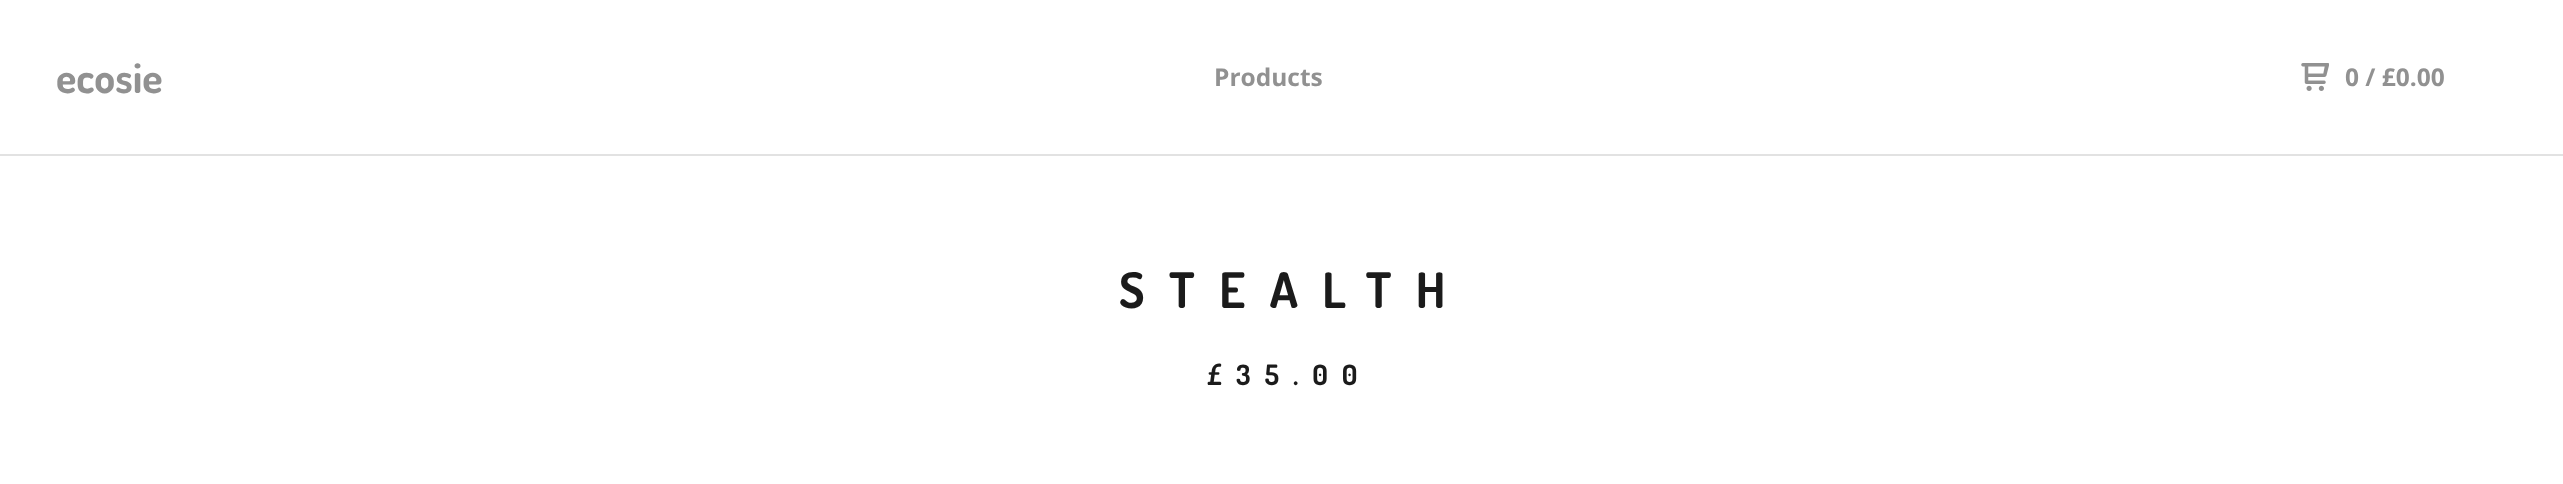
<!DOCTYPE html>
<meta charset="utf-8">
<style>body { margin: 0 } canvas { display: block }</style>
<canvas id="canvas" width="2563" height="484"></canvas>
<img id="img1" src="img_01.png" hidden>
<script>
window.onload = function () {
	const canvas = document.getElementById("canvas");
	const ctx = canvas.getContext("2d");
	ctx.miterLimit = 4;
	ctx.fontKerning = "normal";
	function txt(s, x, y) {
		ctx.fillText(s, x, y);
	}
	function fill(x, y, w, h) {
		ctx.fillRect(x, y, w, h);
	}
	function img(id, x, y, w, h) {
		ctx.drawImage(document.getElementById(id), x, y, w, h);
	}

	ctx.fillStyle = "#FFFFFF";
	fill(0, 0, 2563, 484);
	img("img1", 2301, 63, 28, 28);
	ctx.fillStyle = "#E2E2E2";
	fill(0, 154, 2563, 2);
	ctx.font = "bold 42px Dosis";
	ctx.fillStyle = "#919191";
	txt("ecosie", 56, 93);
	ctx.font = "bold 24.5px Open Sans";
	txt("Products", 1214, 86);
	txt("0 / £0.00", 2345, 86);
	ctx.letterSpacing = "24.5px";
	ctx.font = "bold 49px Dosis";
	ctx.fillStyle = "#1B1B1B";
	txt("STEALTH", 1119, 308);
	ctx.letterSpacing = "14px";
	ctx.font = "bold 28px Dosis";
	txt("£35.00", 1207, 385);
};
</script>
